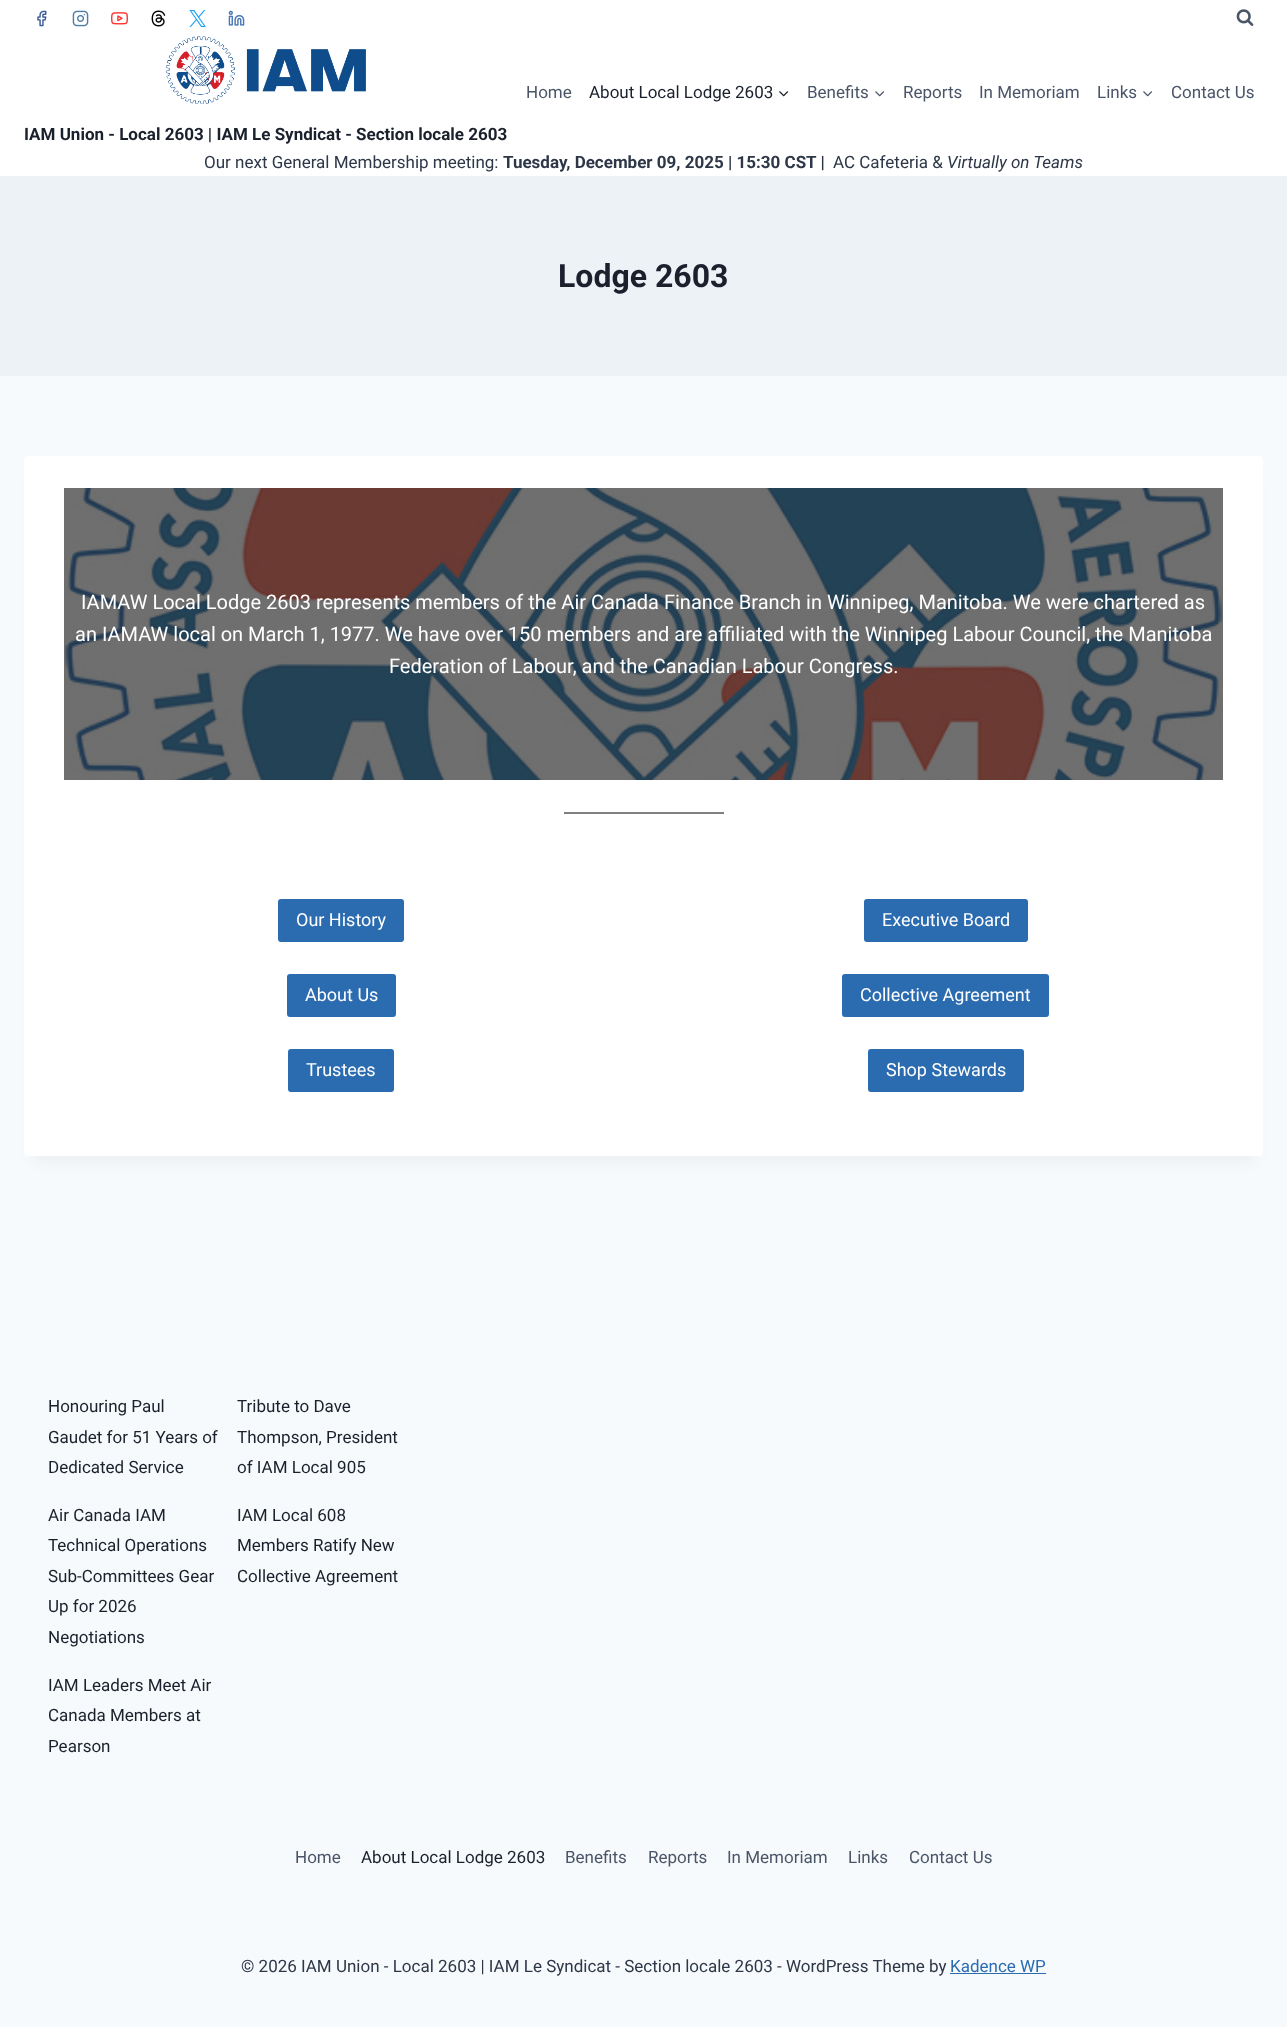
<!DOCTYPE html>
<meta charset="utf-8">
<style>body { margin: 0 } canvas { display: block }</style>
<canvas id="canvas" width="1287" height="2027"></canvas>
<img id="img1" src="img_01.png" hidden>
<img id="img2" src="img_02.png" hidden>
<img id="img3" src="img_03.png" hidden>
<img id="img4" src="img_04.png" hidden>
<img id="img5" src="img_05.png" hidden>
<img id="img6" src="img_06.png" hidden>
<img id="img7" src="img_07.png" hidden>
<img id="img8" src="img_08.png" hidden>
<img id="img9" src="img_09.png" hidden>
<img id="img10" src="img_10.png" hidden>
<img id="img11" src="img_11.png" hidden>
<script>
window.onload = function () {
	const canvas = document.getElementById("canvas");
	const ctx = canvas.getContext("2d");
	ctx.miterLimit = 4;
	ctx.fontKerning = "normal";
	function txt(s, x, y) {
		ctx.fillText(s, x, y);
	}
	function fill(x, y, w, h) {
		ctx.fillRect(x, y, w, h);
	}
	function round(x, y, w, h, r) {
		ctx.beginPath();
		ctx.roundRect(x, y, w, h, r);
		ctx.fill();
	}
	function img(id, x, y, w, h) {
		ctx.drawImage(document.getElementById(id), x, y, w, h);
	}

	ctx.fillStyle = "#F7FAFC";
	fill(0, 0, 1287, 2027);
	ctx.fillStyle = "#FFFFFF";
	fill(0, 0, 1287, 176);
	img("img1", 37, 10, 10, 17);
	img("img2", 72, 10, 17, 17);
	img("img3", 111, 12, 17, 13);
	img("img4", 151, 10, 15, 17);
	img("img5", 189, 10, 17, 17);
	img("img6", 228, 10, 17, 16);
	img("img7", 1236, 9, 18, 17);
	img("img8", 779, 91, 10, 6);
	img("img9", 875, 91, 10, 6);
	img("img9", 1143, 91, 10, 6);
	img("img10", 166, 36, 200, 68);
	ctx.fillStyle = "#EDF2F7";
	fill(0, 176, 1287, 200);
	ctx.fillStyle = "rgba(0, 0, 0, 0.05)";
	ctx.filter = "blur(7.5px)";
	ctx.beginPath();
	ctx.rect(34, 481, 1219, 680);
	ctx.fill();
	ctx.filter = "none";
	ctx.fillStyle = "#FFFFFF";
	round(24, 456, 1239, 700, 4);
	img("img11", 64, 488, 1159, 292);
	ctx.fillStyle = "#808080";
	fill(564, 812, 160, 2);
	ctx.fillStyle = "#2B6CB0";
	round(278, 899, 126, 43, 3);
	round(864, 899, 164, 43, 3);
	round(287, 974, 109, 43, 3);
	round(842, 974, 207, 43, 3);
	round(288, 1049, 106, 43, 3);
	round(868, 1049, 156, 43, 3);
	fill(950, 1973, 96, 1);
	ctx.font = "17px Roboto";
	ctx.fillStyle = "#4A5568";
	txt("Home", 526, 98);
	ctx.fillStyle = "#1A202C";
	txt("About Local Lodge 2603", 589, 98);
	ctx.fillStyle = "#4A5568";
	txt("Benefits", 807, 98);
	txt("Reports", 903, 98);
	txt("In Memoriam", 979, 98);
	txt("Links", 1097, 98);
	txt("Contact Us", 1171, 98);
	ctx.font = "bold 17px Roboto";
	ctx.fillStyle = "#1A202C";
	txt("IAM Union - Local 2603 | IAM Le Syndicat - Section locale 2603", 24, 140);
	ctx.font = "17px Roboto";
	ctx.fillStyle = "#2D3748";
	txt("Our next General Membership meeting:", 204, 168);
	ctx.font = "bold 17px Roboto";
	txt("Tuesday, December 09, 2025 | 15:30 CST |", 503, 168);
	ctx.font = "17px Roboto";
	txt("AC Cafeteria &", 833, 168);
	ctx.font = "italic 17px Roboto";
	txt("Virtually on Teams", 947, 168);
	ctx.font = "bold 32px Roboto";
	ctx.fillStyle = "#1A202C";
	txt("Lodge 2603", 558, 287);
	ctx.font = "20px Roboto";
	ctx.fillStyle = "#FFFFFF";
	txt("IAMAW Local Lodge 2603 represents members of the Air Canada Finance Branch in Winnipeg, Manitoba. We were chartered as", 81, 609);
	txt("an IAMAW local on March 1, 1977. We have over 150 members and are affiliated with the Winnipeg Labour Council, the Manitoba", 75, 641);
	txt("Federation of Labour, and the Canadian Labour Congress.", 389, 673);
	ctx.font = "18px Roboto";
	txt("Our History", 296, 926);
	txt("Executive Board", 882, 926);
	txt("About Us", 305, 1001);
	txt("Collective Agreement", 860, 1001);
	txt("Trustees", 306, 1076);
	txt("Shop Stewards", 886, 1076);
	ctx.font = "17px Roboto";
	ctx.fillStyle = "#1A202C";
	txt("Honouring Paul", 48, 1412);
	txt("Gaudet for 51 Years of", 48, 1443);
	txt("Dedicated Service", 48, 1473);
	txt("Tribute to Dave", 237, 1412);
	txt("Thompson, President", 237, 1443);
	txt("of IAM Local 905", 237, 1473);
	txt("Air Canada IAM", 48, 1521);
	txt("Technical Operations", 48, 1551);
	txt("Sub-Committees Gear", 48, 1582);
	txt("Up for 2026", 48, 1612);
	txt("Negotiations", 48, 1643);
	txt("IAM Local 608", 237, 1521);
	txt("Members Ratify New", 237, 1551);
	txt("Collective Agreement", 237, 1582);
	txt("IAM Leaders Meet Air", 48, 1691);
	txt("Canada Members at", 48, 1721);
	txt("Pearson", 48, 1752);
	ctx.fillStyle = "#4A5568";
	txt("Home", 295, 1863);
	ctx.fillStyle = "#1A202C";
	txt("About Local Lodge 2603", 361, 1863);
	ctx.fillStyle = "#4A5568";
	txt("Benefits", 565, 1863);
	txt("Reports", 648, 1863);
	txt("In Memoriam", 727, 1863);
	txt("Links", 848, 1863);
	txt("Contact Us", 909, 1863);
	ctx.fillStyle = "#2D3748";
	txt("© 2026 IAM Union - Local 2603 | IAM Le Syndicat - Section locale 2603 - WordPress Theme by", 241, 1972);
	ctx.fillStyle = "#2B6CB0";
	txt("Kadence WP", 950, 1972);
};
</script>
